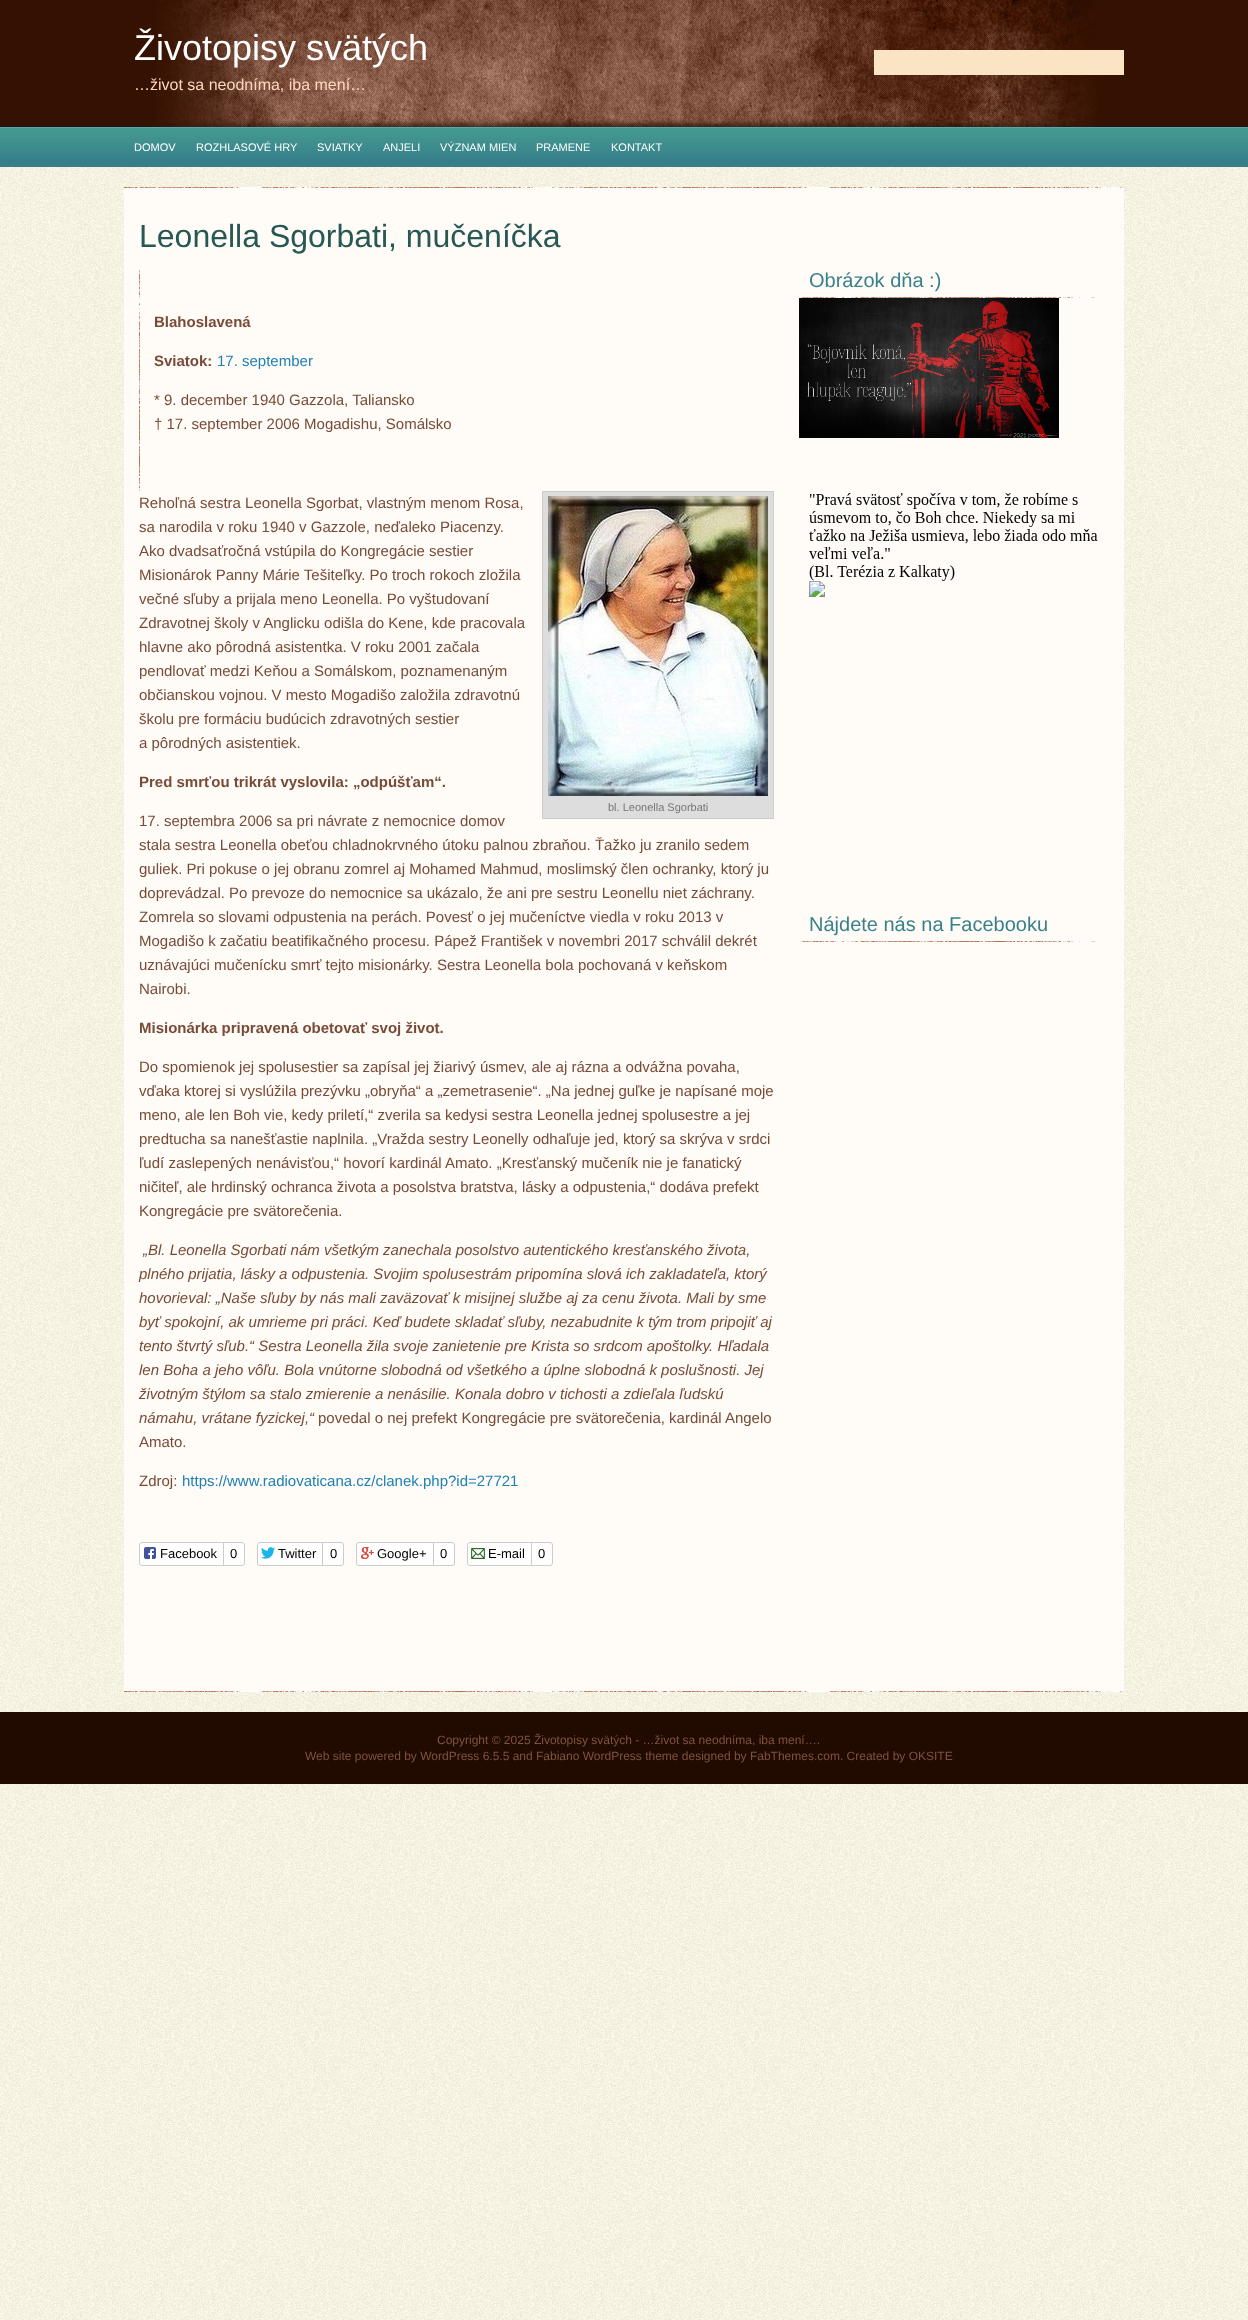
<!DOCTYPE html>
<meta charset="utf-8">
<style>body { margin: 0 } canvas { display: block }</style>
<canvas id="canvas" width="1248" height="2320"></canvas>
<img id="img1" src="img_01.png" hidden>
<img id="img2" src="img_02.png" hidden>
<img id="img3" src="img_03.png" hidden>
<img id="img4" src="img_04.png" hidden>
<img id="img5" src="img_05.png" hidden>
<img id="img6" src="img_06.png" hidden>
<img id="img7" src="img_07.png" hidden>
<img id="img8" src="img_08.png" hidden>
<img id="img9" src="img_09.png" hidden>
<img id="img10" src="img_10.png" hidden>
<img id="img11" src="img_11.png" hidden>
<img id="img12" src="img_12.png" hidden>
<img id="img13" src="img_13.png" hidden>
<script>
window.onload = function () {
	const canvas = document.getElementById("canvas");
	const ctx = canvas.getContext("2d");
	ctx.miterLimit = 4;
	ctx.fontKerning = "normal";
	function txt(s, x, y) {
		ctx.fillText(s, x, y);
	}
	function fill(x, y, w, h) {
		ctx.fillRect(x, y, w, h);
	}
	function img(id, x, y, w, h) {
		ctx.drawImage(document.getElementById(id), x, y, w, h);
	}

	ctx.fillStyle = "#FFFFFF";
	fill(0, 0, 1248, 2320);
	img("img1", 0, 167, 1248, 2153);
	ctx.fillStyle = "#351101";
	fill(0, 0, 1248, 127);
	img("img2", 156, 0, 941, 127);
	ctx.fillStyle = "#FAE4C4";
	fill(874, 50, 250, 25);
	ctx.fillStyle = "#367E8A";
	fill(0, 158, 1248, 9);
	img("img3", 0, 127, 1248, 31);
	img("img4", 124, 187, 1000, 1);
	ctx.fillStyle = "#FFFBF7";
	fill(124, 188, 1000, 1503);
	img("img5", 139, 270, 1, 221);
	ctx.fillStyle = "#DDDDDD";
	ctx.beginPath();
	ctx.rect(542.5, 491.5, 231, 327);
	ctx.fill();
	ctx.strokeStyle = "#CCCCCC";
	ctx.stroke();
	img("img6", 548, 496, 220, 300);
	ctx.fillStyle = "#FFFFFF";
	ctx.beginPath();
	ctx.roundRect(139.5, 1542.5, 105, 23, 2.5);
	ctx.fill();
	ctx.stroke();
	img("img7", 144, 1547, 12, 12);
	ctx.fillStyle = "#CCCCCC";
	fill(223, 1543, 1, 22);
	ctx.fillStyle = "#FFFFFF";
	ctx.beginPath();
	ctx.roundRect(257.5, 1542.5, 86, 23, 2.5);
	ctx.fill();
	ctx.stroke();
	img("img8", 261, 1547, 14, 12);
	ctx.fillStyle = "#CCCCCC";
	fill(322, 1543, 1, 22);
	ctx.fillStyle = "#FFFFFF";
	ctx.beginPath();
	ctx.roundRect(356.5, 1542.5, 98, 23, 2.5);
	ctx.fill();
	ctx.stroke();
	img("img9", 361, 1547, 13, 12);
	ctx.fillStyle = "#CCCCCC";
	fill(433, 1543, 1, 22);
	ctx.fillStyle = "#FFFFFF";
	ctx.beginPath();
	ctx.roundRect(467.5, 1542.5, 85, 23, 2.5);
	ctx.fill();
	ctx.stroke();
	img("img10", 471, 1548, 14, 11);
	ctx.fillStyle = "#CCCCCC";
	fill(531, 1543, 1, 22);
	img("img11", 799, 297, 297, 1);
	img("img12", 799, 298, 260, 140);
	img("img13", 809, 493, 289, 104);
	img("img11", 799, 941, 297, 1);
	img("img4", 124, 1691, 1000, 1);
	ctx.fillStyle = "#210B01";
	fill(0, 1712, 1248, 72);
	ctx.font = "36px Liberation Sans";
	ctx.fillStyle = "#FFFFFF";
	txt("Životopisy svätých", 134, 60);
	ctx.font = "16px Liberation Sans";
	ctx.fillStyle = "#FFD9BF";
	txt("…život sa neodníma, iba mení…", 134, 90);
	ctx.font = "11px Liberation Sans";
	ctx.fillStyle = "#FFFFFF";
	txt("DOMOV", 134, 151);
	txt("ROZHLASOVÉ HRY", 196, 151);
	txt("SVIATKY", 317, 151);
	txt("ANJELI", 383, 151);
	txt("VÝZNAM MIEN", 440, 151);
	txt("PRAMENE", 536, 151);
	txt("KONTAKT", 611, 151);
	ctx.font = "32px Liberation Sans";
	ctx.fillStyle = "#275854";
	txt("Leonella Sgorbati, mučeníčka", 139, 247);
	ctx.font = "bold 15px Liberation Sans";
	ctx.fillStyle = "#774B38";
	txt("Blahoslavená", 154, 327);
	txt("Sviatok:", 154, 366);
	ctx.font = "15px Liberation Sans";
	ctx.fillStyle = "#1D81B6";
	txt("17. september", 217, 366);
	ctx.fillStyle = "#774B38";
	txt("* 9. december 1940 Gazzola, Taliansko", 154, 405);
	txt("† 17. september 2006 Mogadishu, Somálsko", 154, 429);
	txt("Rehoľná sestra Leonella Sgorbat, vlastným menom Rosa,", 139, 508);
	txt("sa narodila v roku 1940 v Gazzole, neďaleko Piacenzy.", 139, 532);
	txt("Ako dvadsaťročná vstúpila do Kongregácie sestier", 139, 556);
	txt("Misionárok Panny Márie Tešiteľky. Po troch rokoch zložila", 139, 580);
	txt("večné sľuby a prijala meno Leonella. Po vyštudovaní", 139, 604);
	txt("Zdravotnej školy v Anglicku odišla do Kene, kde pracovala", 139, 628);
	txt("hlavne ako pôrodná asistentka. V roku 2001 začala", 139, 652);
	txt("pendlovať medzi Keňou a Somálskom, poznamenaným", 139, 676);
	txt("občianskou vojnou. V mesto Mogadišo založila zdravotnú", 139, 700);
	txt("školu pre formáciu budúcich zdravotných sestier", 139, 724);
	txt("a pôrodných asistentiek.", 139, 748);
	ctx.font = "bold 15px Liberation Sans";
	txt("Pred smrťou trikrát vyslovila: „odpúšťam“.", 139, 787);
	ctx.font = "11px Liberation Sans";
	ctx.fillStyle = "#777777";
	txt("bl. Leonella Sgorbati", 608, 811);
	ctx.font = "15px Liberation Sans";
	ctx.fillStyle = "#774B38";
	txt("17. septembra 2006 sa pri návrate z nemocnice domov", 139, 826);
	txt("stala sestra Leonella obeťou chladnokrvného útoku palnou zbraňou. Ťažko ju zranilo sedem", 139, 850);
	txt("guliek. Pri pokuse o jej obranu zomrel aj Mohamed Mahmud, moslimský člen ochranky, ktorý ju", 139, 874);
	txt("doprevádzal. Po prevoze do nemocnice sa ukázalo, že ani pre sestru Leonellu niet záchrany.", 139, 898);
	txt("Zomrela so slovami odpustenia na perách. Povesť o jej mučeníctve viedla v roku 2013 v", 139, 922);
	txt("Mogadišo k začatiu beatifikačného procesu. Pápež František v novembri 2017 schválil dekrét", 139, 946);
	txt("uznávajúci mučenícku smrť tejto misionárky. Sestra Leonella bola pochovaná v keňskom", 139, 970);
	txt("Nairobi.", 139, 994);
	ctx.font = "bold 15px Liberation Sans";
	txt("Misionárka pripravená obetovať svoj život.", 139, 1033);
	ctx.font = "15px Liberation Sans";
	txt("Do spomienok jej spolusestier sa zapísal jej žiarivý úsmev, ale aj rázna a odvážna povaha,", 139, 1072);
	txt("vďaka ktorej si vyslúžila prezývku „obryňa“ a „zemetrasenie“. „Na jednej guľke je napísané moje", 139, 1096);
	txt("meno, ale len Boh vie, kedy priletí,“ zverila sa kedysi sestra Leonella jednej spolusestre a jej", 139, 1120);
	txt("predtucha sa nanešťastie naplnila. „Vražda sestry Leonelly odhaľuje jed, ktorý sa skrýva v srdci", 139, 1144);
	txt("ľudí zaslepených nenávisťou,“ hovorí kardinál Amato. „Kresťanský mučeník nie je fanatický", 139, 1168);
	txt("ničiteľ, ale hrdinský ochranca života a posolstva bratstva, lásky a odpustenia,“ dodáva prefekt", 139, 1192);
	txt("Kongregácie pre svätorečenia.", 139, 1216);
	ctx.font = "italic 15px Liberation Sans";
	txt("„Bl. Leonella Sgorbati nám všetkým zanechala posolstvo autentického kresťanského života,", 143, 1255);
	txt("plného prijatia, lásky a odpustenia. Svojim spolusestrám pripomína slová ich zakladateľa, ktorý", 139, 1279);
	txt("hovorieval: „Naše sľuby by nás mali zaväzovať k misijnej službe aj za cenu života. Mali by sme", 139, 1303);
	txt("byť spokojní, ak umrieme pri práci. Keď budete skladať sľuby, nezabudnite k tým trom pripojiť aj", 139, 1327);
	txt("tento štvrtý sľub.“ Sestra Leonella žila svoje zanietenie pre Krista so srdcom apoštolky. Hľadala", 139, 1351);
	txt("len Boha a jeho vôľu. Bola vnútorne slobodná od všetkého a úplne slobodná k poslušnosti. Jej", 139, 1375);
	txt("životným štýlom sa stalo zmierenie a nenásilie. Konala dobro v tichosti a zdieľala ľudskú", 139, 1399);
	txt("námahu, vrátane fyzickej,“", 139, 1423);
	ctx.font = "15px Liberation Sans";
	txt("povedal o nej prefekt Kongregácie pre svätorečenia, kardinál Angelo", 318, 1423);
	txt("Amato.", 139, 1447);
	txt("Zdroj:", 139, 1486);
	ctx.fillStyle = "#1D81B6";
	txt("https://www.radiovaticana.cz/clanek.php?id=27721", 182, 1486);
	ctx.font = "13px Liberation Sans";
	ctx.fillStyle = "#000000";
	txt("Facebook", 160, 1558);
	txt("0", 230, 1558);
	txt("Twitter", 278, 1558);
	txt("0", 330, 1558);
	txt("Google+", 377, 1558);
	txt("0", 440, 1558);
	txt("E-mail", 488, 1558);
	txt("0", 538, 1558);
	ctx.font = "20px Liberation Sans";
	ctx.fillStyle = "#38818B";
	txt("Obrázok dňa :)", 809, 287);
	txt("Nájdete nás na Facebooku", 809, 931);
	ctx.font = "12px Liberation Sans";
	ctx.fillStyle = "#7F533F";
	txt("Copyright © 2025 Životopisy svätých - …život sa neodníma, iba mení….", 437, 1744);
	txt("Web site powered by WordPress 6.5.5 and Fabiano WordPress theme designed by FabThemes.com. Created by OKSITE", 305, 1760);
};
</script>
